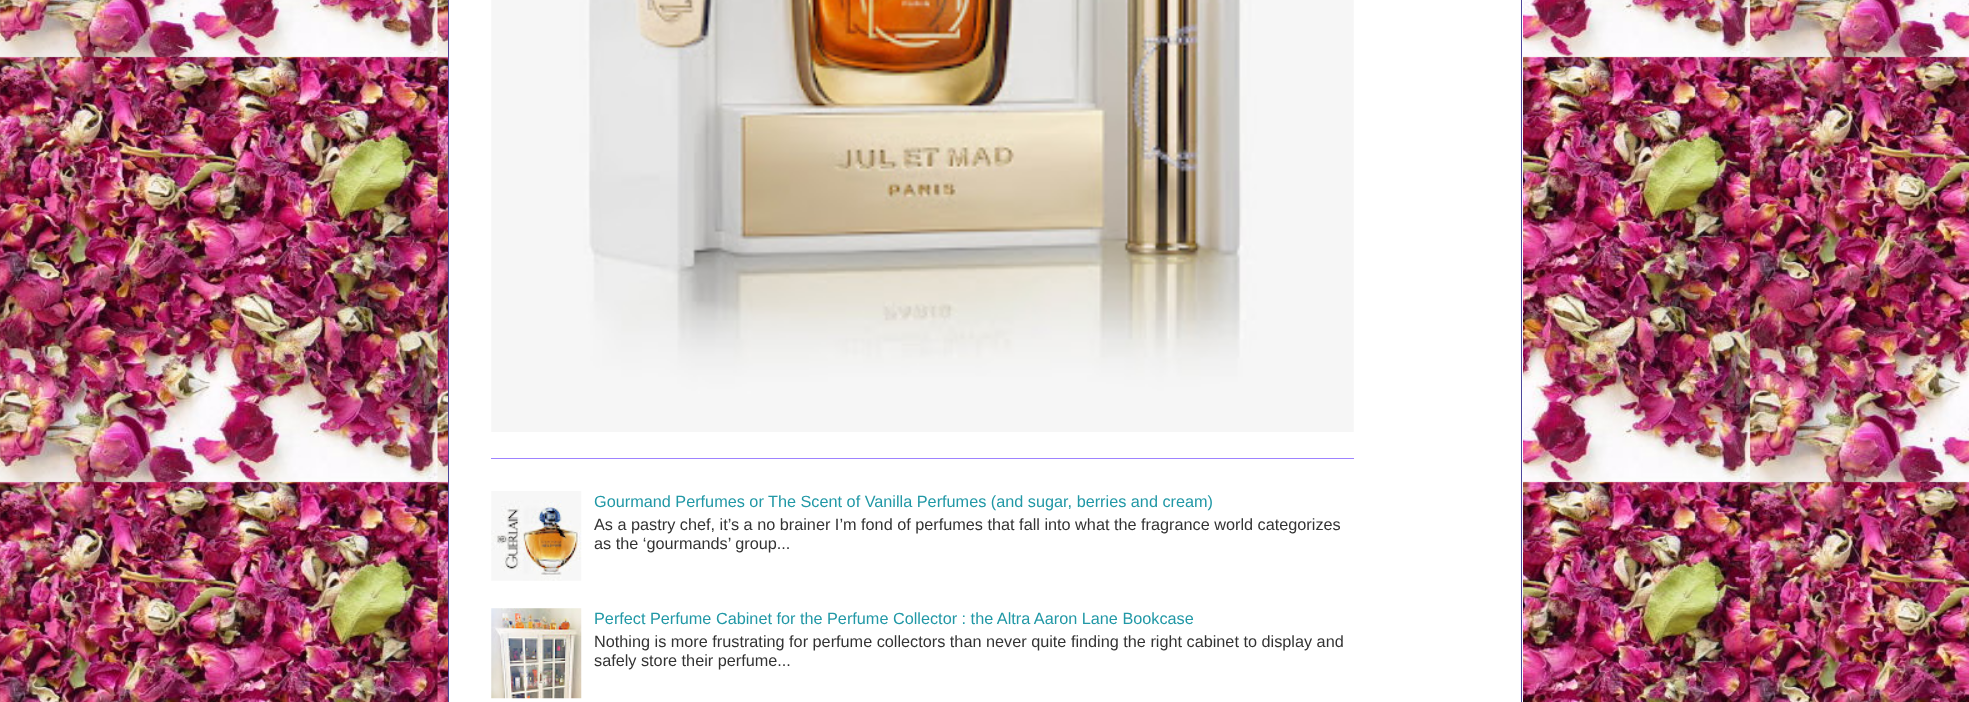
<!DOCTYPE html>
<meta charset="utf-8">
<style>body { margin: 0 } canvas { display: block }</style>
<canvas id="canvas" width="1969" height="702"></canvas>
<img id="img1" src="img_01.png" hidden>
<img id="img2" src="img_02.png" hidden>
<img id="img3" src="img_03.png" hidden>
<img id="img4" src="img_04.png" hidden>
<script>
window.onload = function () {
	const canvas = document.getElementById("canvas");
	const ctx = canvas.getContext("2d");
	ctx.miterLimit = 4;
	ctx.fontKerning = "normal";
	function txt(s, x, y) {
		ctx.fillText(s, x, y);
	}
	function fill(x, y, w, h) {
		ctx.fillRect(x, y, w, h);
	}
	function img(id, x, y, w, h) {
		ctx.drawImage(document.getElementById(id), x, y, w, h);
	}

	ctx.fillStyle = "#FFFFFF";
	fill(0, 0, 1969, 702);
	img("img1", 0, 0, 1969, 702);
	fill(449, 0, 1074, 702);
	ctx.fillStyle = "#4D469C";
	fill(1521, 0, 1, 702);
	fill(448, 0, 1, 702);
	ctx.fillStyle = "#9F83FF";
	fill(491, 458, 863, 1);
	img("img2", 491, 0, 863, 432);
	img("img3", 491, 491, 91, 90);
	img("img4", 491, 608, 91, 91);
	ctx.font = "16.25px Liberation Sans";
	ctx.fillStyle = "#2198A6";
	txt("Gourmand Perfumes or The Scent of Vanilla Perfumes (and sugar, berries and cream)", 594, 507);
	ctx.fillStyle = "#333333";
	txt("As a pastry chef, it’s a no brainer I’m fond of perfumes that fall into what the fragrance world categorizes", 594, 530);
	txt("as the ‘gourmands’ group...", 594, 549);
	ctx.fillStyle = "#2198A6";
	txt("Perfect Perfume Cabinet for the Perfume Collector : the Altra Aaron Lane Bookcase", 594, 624);
	ctx.fillStyle = "#333333";
	txt("Nothing is more frustrating for perfume collectors than never quite finding the right cabinet to display and", 594, 647);
	txt("safely store their perfume...", 594, 666);
};
</script>
